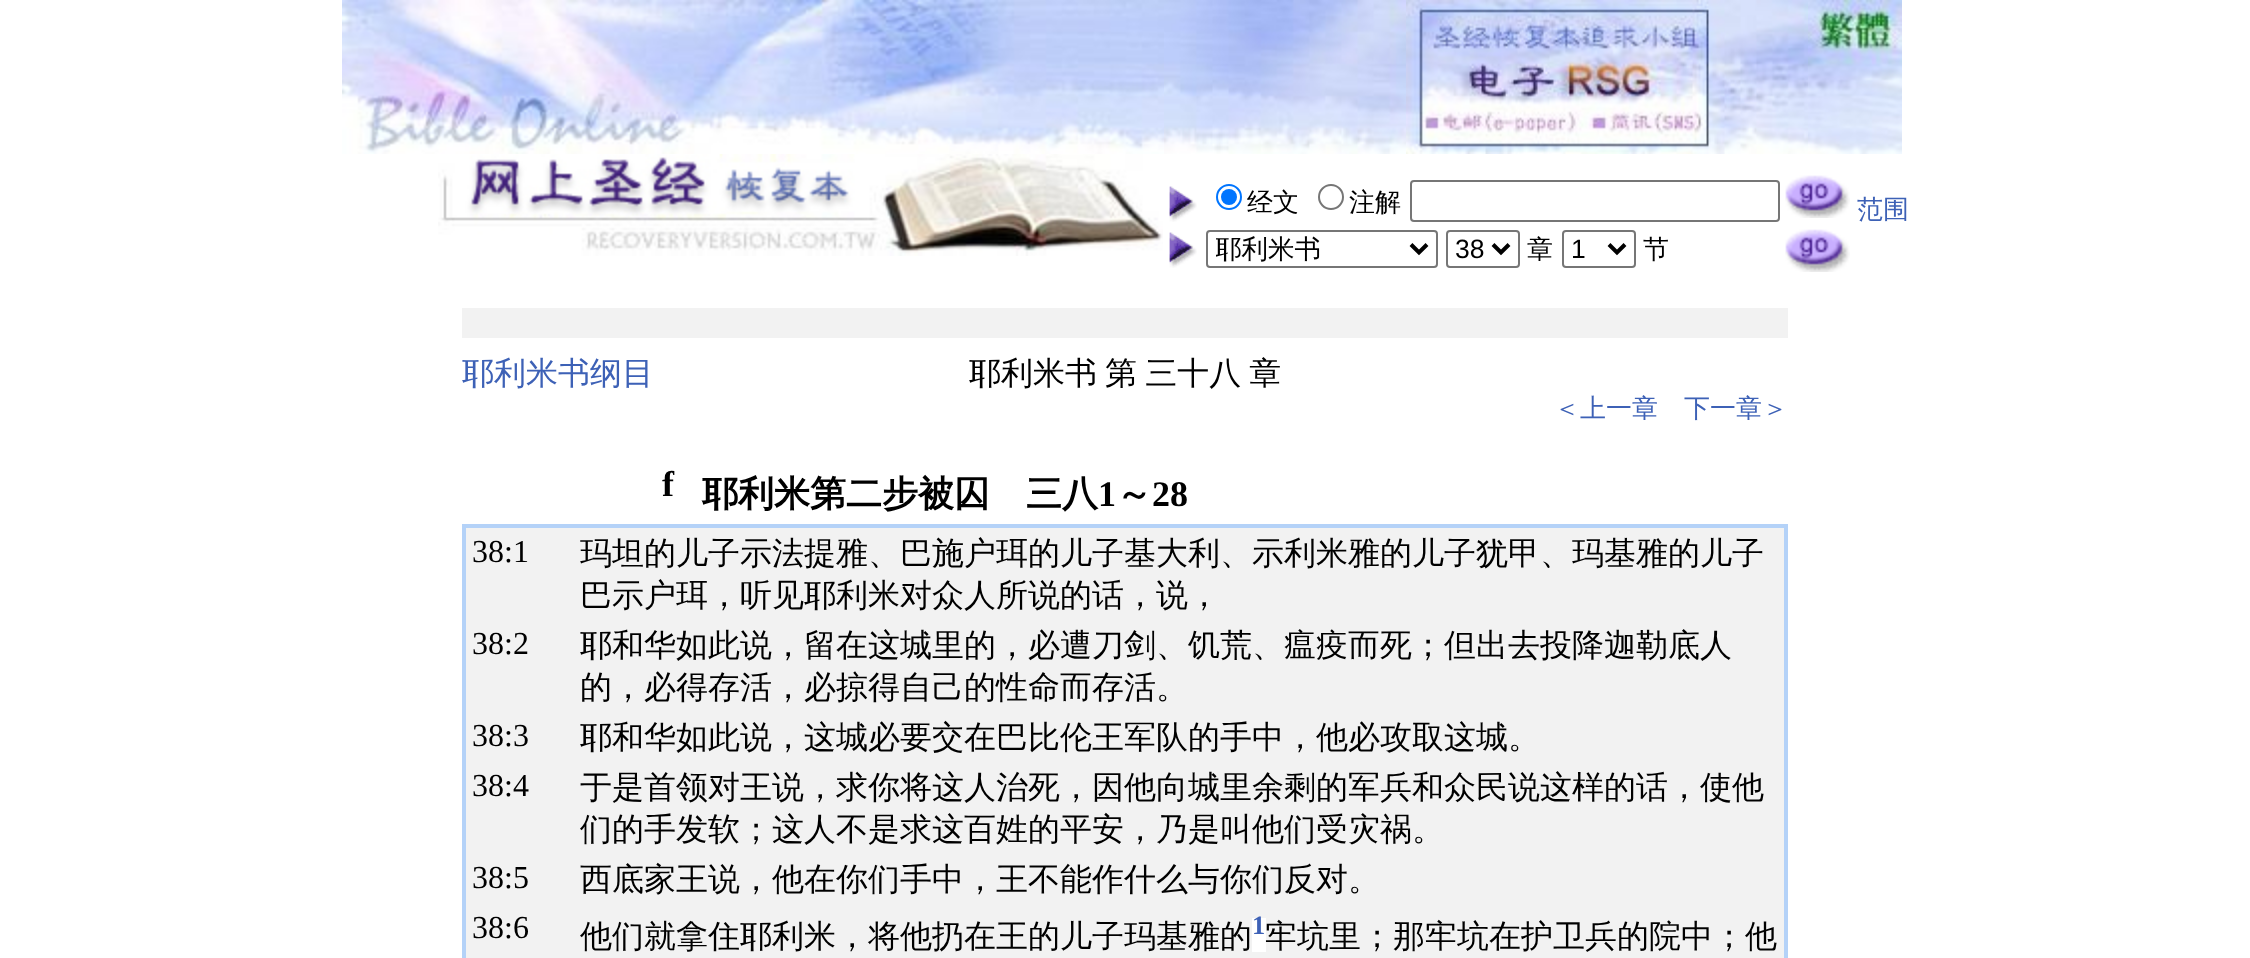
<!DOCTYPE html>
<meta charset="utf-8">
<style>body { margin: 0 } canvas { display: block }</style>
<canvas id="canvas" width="2250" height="958"></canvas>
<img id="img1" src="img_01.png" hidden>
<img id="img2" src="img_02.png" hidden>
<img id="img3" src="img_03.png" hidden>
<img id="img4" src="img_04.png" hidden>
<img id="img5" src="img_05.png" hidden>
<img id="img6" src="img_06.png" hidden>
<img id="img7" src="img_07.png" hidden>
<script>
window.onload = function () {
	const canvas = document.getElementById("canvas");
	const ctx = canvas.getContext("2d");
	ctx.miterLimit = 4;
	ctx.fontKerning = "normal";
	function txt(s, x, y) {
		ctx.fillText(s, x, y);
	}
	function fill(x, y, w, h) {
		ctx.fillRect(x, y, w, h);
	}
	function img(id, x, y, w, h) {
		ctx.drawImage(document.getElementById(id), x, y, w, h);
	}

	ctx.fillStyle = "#FFFFFF";
	fill(0, 0, 2250, 958);
	img("img1", 342, 0, 822, 154);
	img("img2", 1164, 0, 242, 154);
	img("img3", 1406, 0, 402, 154);
	img("img4", 1808, 0, 94, 154);
	img("img5", 438, 154, 725, 102);
	img("img6", 1169, 186, 28, 36);
	ctx.beginPath();
	ctx.arc(1229, 197, 12, 0, Math.PI * 2);
	ctx.strokeStyle = "#0075FF";
	ctx.lineWidth = 2;
	ctx.stroke();
	ctx.fillStyle = "#0075FF";
	ctx.beginPath();
	ctx.arc(1229, 197, 8, 0, Math.PI * 2);
	ctx.fill();
	ctx.beginPath();
	ctx.arc(1331, 197, 12, 0, Math.PI * 2);
	ctx.strokeStyle = "#767676";
	ctx.stroke();
	ctx.beginPath();
	ctx.roundRect(1411, 181, 368, 40, 3);
	ctx.stroke();
	img("img7", 1785, 175, 65, 43);
	img("img6", 1169, 232, 28, 36);
	ctx.beginPath();
	ctx.roundRect(1207, 231, 230, 36, 3);
	ctx.stroke();
	ctx.beginPath();
	ctx.moveTo(1411, 244.5);
	ctx.lineTo(1419, 252.5);
	ctx.lineTo(1427, 244.5);
	ctx.strokeStyle = "#000000";
	ctx.lineWidth = 4;
	ctx.stroke();
	ctx.beginPath();
	ctx.roundRect(1447, 231, 72, 36, 3);
	ctx.strokeStyle = "#767676";
	ctx.lineWidth = 2;
	ctx.stroke();
	ctx.beginPath();
	ctx.moveTo(1493, 244.5);
	ctx.lineTo(1501, 252.5);
	ctx.lineTo(1509, 244.5);
	ctx.strokeStyle = "#000000";
	ctx.lineWidth = 4;
	ctx.stroke();
	ctx.beginPath();
	ctx.roundRect(1563, 231, 72, 36, 3);
	ctx.strokeStyle = "#767676";
	ctx.lineWidth = 2;
	ctx.stroke();
	ctx.beginPath();
	ctx.moveTo(1609, 244.5);
	ctx.lineTo(1617, 252.5);
	ctx.lineTo(1625, 244.5);
	ctx.strokeStyle = "#000000";
	ctx.lineWidth = 4;
	ctx.stroke();
	img("img7", 1785, 229, 65, 43);
	ctx.fillStyle = "#F2F2F2";
	fill(462, 308, 1326, 30);
	fill(466, 528, 1318, 430);
	ctx.strokeStyle = "#B4D2F8";
	ctx.lineWidth = 2;
	ctx.strokeRect(463, 525, 1324, 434);
	ctx.strokeRect(465, 527, 1320, 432);
	ctx.fillStyle = "#FFFFFF";
	fill(1252, 918, 14, 34);
	ctx.font = "500 26px WenQuanYi Zen Hei";
	ctx.fillStyle = "#000000";
	txt("经文", 1247, 211);
	txt("注解", 1349, 211);
	ctx.fillStyle = "#3D61B6";
	txt("范围", 1857, 218);
	ctx.save();
	ctx.beginPath();
	ctx.rect(1216, 232, 188, 34);
	ctx.clip();
	ctx.font = "500 26.5px WenQuanYi Zen Hei";
	ctx.fillStyle = "#000000";
	txt("耶利米书", 1215, 258);
	ctx.restore();
	ctx.font = "26.5px Liberation Sans";
	ctx.fillStyle = "#000000";
	txt("38", 1455, 258);
	ctx.font = "500 26px WenQuanYi Zen Hei";
	txt("章", 1527, 258);
	ctx.font = "26.5px Liberation Sans";
	txt("1", 1571, 258);
	ctx.font = "500 26px WenQuanYi Zen Hei";
	txt("节", 1643, 258);
	ctx.font = "500 32px WenQuanYi Zen Hei";
	ctx.fillStyle = "#3D61B6";
	txt("耶利米书纲目", 462, 384);
	ctx.wordSpacing = "-1.5px";
	ctx.fillStyle = "#000000";
	txt("耶利米书 第 三十八 章", 969, 384);
	ctx.wordSpacing = "0px";
	ctx.font = "500 26px WenQuanYi Zen Hei";
	ctx.fillStyle = "#3D61B6";
	txt("＜上一章", 1554, 417);
	txt("下一章＞", 1684, 417);
	ctx.font = "bold 36px Liberation Serif";
	ctx.fillStyle = "#000000";
	txt("f", 662, 496);
	ctx.font = "bold 36px WenQuanYi Zen Hei";
	txt("耶利米第二步被囚　三八", 702, 506);
	ctx.font = "bold 36px Liberation Serif";
	txt("1", 1098, 506);
	ctx.font = "bold 36px WenQuanYi Zen Hei";
	txt("～", 1116, 506);
	ctx.font = "bold 36px Liberation Serif";
	txt("28", 1152, 506);
	ctx.font = "32px Liberation Serif";
	txt("38:1", 472, 562);
	ctx.font = "500 32px WenQuanYi Zen Hei";
	txt("玛坦的儿子示法提雅、巴施户珥的儿子基大利、示利米雅的儿子犹甲、玛基雅的儿子", 580, 564);
	txt("巴示户珥，听见耶利米对众人所说的话，说，", 580, 606);
	ctx.font = "32px Liberation Serif";
	txt("38:2", 472, 654);
	ctx.font = "500 32px WenQuanYi Zen Hei";
	txt("耶和华如此说，留在这城里的，必遭刀剑、饥荒、瘟疫而死；但出去投降迦勒底人", 580, 656);
	txt("的，必得存活，必掠得自己的性命而存活。", 580, 698);
	ctx.font = "32px Liberation Serif";
	txt("38:3", 472, 746);
	ctx.font = "500 32px WenQuanYi Zen Hei";
	txt("耶和华如此说，这城必要交在巴比伦王军队的手中，他必攻取这城。", 580, 748);
	ctx.font = "32px Liberation Serif";
	txt("38:4", 472, 796);
	ctx.font = "500 32px WenQuanYi Zen Hei";
	txt("于是首领对王说，求你将这人治死，因他向城里余剩的军兵和众民说这样的话，使他", 580, 798);
	txt("们的手发软；这人不是求这百姓的平安，乃是叫他们受灾祸。", 580, 840);
	ctx.font = "32px Liberation Serif";
	txt("38:5", 472, 888);
	ctx.font = "500 32px WenQuanYi Zen Hei";
	txt("西底家王说，他在你们手中，王不能作什么与你们反对。", 580, 890);
	ctx.font = "32px Liberation Serif";
	txt("38:6", 472, 938);
	ctx.font = "500 32px WenQuanYi Zen Hei";
	txt("他们就拿住耶利米，将他扔在王的儿子玛基雅的", 580, 947);
	ctx.font = "bold 26.5px Liberation Serif";
	ctx.fillStyle = "#3D61B6";
	txt("1", 1252, 934);
	ctx.font = "500 32px WenQuanYi Zen Hei";
	ctx.fillStyle = "#000000";
	txt("牢坑里；那牢坑在护卫兵的院中；他", 1265, 947);
};
</script>
